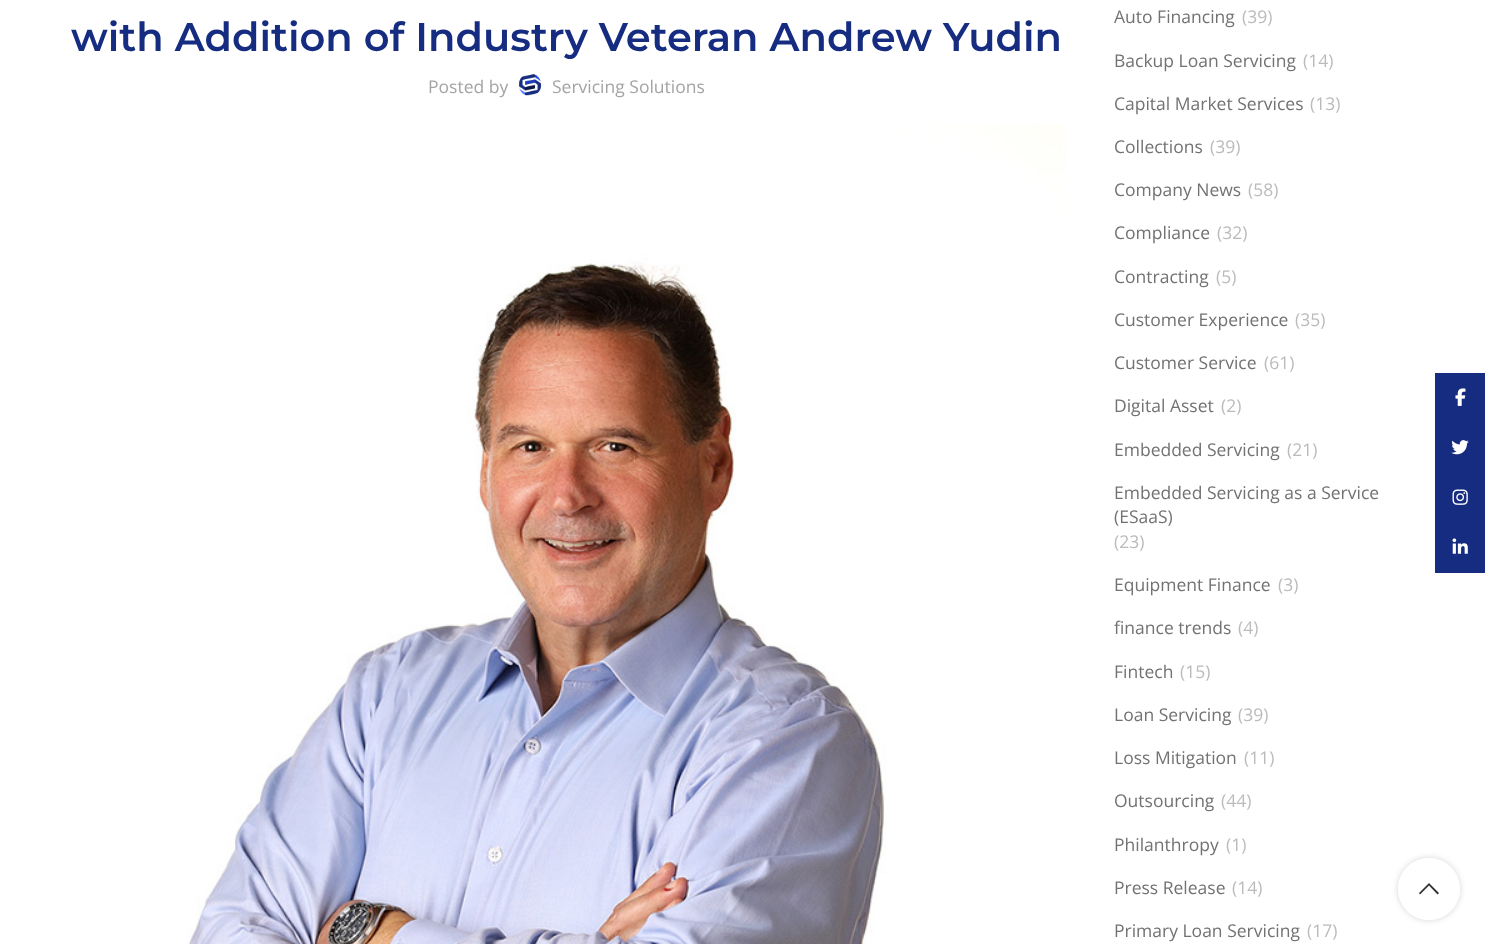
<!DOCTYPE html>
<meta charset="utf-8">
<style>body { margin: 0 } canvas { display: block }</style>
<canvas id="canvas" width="1485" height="944"></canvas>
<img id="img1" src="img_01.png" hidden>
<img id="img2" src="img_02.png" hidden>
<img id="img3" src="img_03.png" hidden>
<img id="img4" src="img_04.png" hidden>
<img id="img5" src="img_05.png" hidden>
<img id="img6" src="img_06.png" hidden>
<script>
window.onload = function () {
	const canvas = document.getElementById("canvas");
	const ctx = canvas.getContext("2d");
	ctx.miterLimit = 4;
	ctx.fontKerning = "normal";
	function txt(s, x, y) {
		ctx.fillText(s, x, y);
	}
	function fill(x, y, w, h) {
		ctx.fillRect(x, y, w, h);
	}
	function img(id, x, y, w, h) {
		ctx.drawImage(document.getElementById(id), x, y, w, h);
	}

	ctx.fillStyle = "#FFFFFF";
	fill(0, 0, 1485, 944);
	img("img1", 518, 74, 24, 22);
	img("img2", 188, 124, 878, 820);
	ctx.fillStyle = "#162C80";
	fill(1435, 373, 50, 200);
	img("img3", 1455, 388, 11, 18);
	img("img4", 1451, 440, 18, 15);
	img("img5", 1452, 489, 16, 16);
	img("img6", 1452, 538, 16, 16);
	ctx.save();
	ctx.beginPath();
	ctx.moveTo(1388, 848);
	ctx.lineTo(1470, 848);
	ctx.lineTo(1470, 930);
	ctx.lineTo(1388, 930);
	ctx.closePath();
	ctx.moveTo(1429, 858);
	ctx.bezierCurveTo(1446, 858, 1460, 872, 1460, 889);
	ctx.bezierCurveTo(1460, 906, 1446, 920, 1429, 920);
	ctx.bezierCurveTo(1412, 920, 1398, 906, 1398, 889);
	ctx.bezierCurveTo(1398, 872, 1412, 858, 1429, 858);
	ctx.closePath();
	ctx.clip("evenodd");
	ctx.fillStyle = "rgba(0, 0, 0, 0.17)";
	ctx.filter = "blur(3px)";
	ctx.beginPath();
	ctx.roundRect(1398, 858, 62, 62, 31);
	ctx.fill();
	ctx.filter = "none";
	ctx.restore();
	ctx.fillStyle = "rgba(255, 255, 255, 0.9)";
	ctx.beginPath();
	ctx.arc(1429, 889, 31, 0, Math.PI * 2);
	ctx.fill();
	ctx.fillStyle = "#333333";
	ctx.beginPath();
	ctx.moveTo(1429, 883);
	ctx.lineTo(1439, 893);
	ctx.lineTo(1437.5, 894.5);
	ctx.lineTo(1429, 885.5);
	ctx.lineTo(1420, 894.5);
	ctx.lineTo(1419, 893);
	ctx.closePath();
	ctx.fill();
	ctx.font = "600 40px Montserrat";
	ctx.fillStyle = "#162C80";
	txt("with Addition of Industry Veteran Andrew Yudin", 71, 51);
	ctx.font = "17.5px Open Sans";
	ctx.fillStyle = "#A4A4A4";
	txt("Posted by", 428, 93);
	txt("Servicing Solutions", 552, 93);
	ctx.fillStyle = "#727272";
	txt("Auto Financing", 1114, 23);
	ctx.fillStyle = "#BBBBBB";
	txt("(39)", 1242, 23);
	ctx.fillStyle = "#727272";
	txt("Backup Loan Servicing", 1114, 67);
	ctx.fillStyle = "#BBBBBB";
	txt("(14)", 1303, 67);
	ctx.fillStyle = "#727272";
	txt("Capital Market Services", 1114, 110);
	ctx.fillStyle = "#BBBBBB";
	txt("(13)", 1310, 110);
	ctx.fillStyle = "#727272";
	txt("Collections", 1114, 153);
	ctx.fillStyle = "#BBBBBB";
	txt("(39)", 1210, 153);
	ctx.fillStyle = "#727272";
	txt("Company News", 1114, 196);
	ctx.fillStyle = "#BBBBBB";
	txt("(58)", 1248, 196);
	ctx.fillStyle = "#727272";
	txt("Compliance", 1114, 239);
	ctx.fillStyle = "#BBBBBB";
	txt("(32)", 1217, 239);
	ctx.fillStyle = "#727272";
	txt("Contracting", 1114, 283);
	ctx.fillStyle = "#BBBBBB";
	txt("(5)", 1216, 283);
	ctx.fillStyle = "#727272";
	txt("Customer Experience", 1114, 326);
	ctx.fillStyle = "#BBBBBB";
	txt("(35)", 1295, 326);
	ctx.fillStyle = "#727272";
	txt("Customer Service", 1114, 369);
	ctx.fillStyle = "#BBBBBB";
	txt("(61)", 1264, 369);
	ctx.fillStyle = "#727272";
	txt("Digital Asset", 1114, 412);
	ctx.fillStyle = "#BBBBBB";
	txt("(2)", 1221, 412);
	ctx.fillStyle = "#727272";
	txt("Embedded Servicing", 1114, 456);
	ctx.fillStyle = "#BBBBBB";
	txt("(21)", 1287, 456);
	ctx.fillStyle = "#727272";
	txt("Embedded Servicing as a Service", 1114, 499);
	txt("(ESaaS)", 1114, 523);
	ctx.fillStyle = "#BBBBBB";
	txt("(23)", 1114, 548);
	ctx.fillStyle = "#727272";
	txt("Equipment Finance", 1114, 591);
	ctx.fillStyle = "#BBBBBB";
	txt("(3)", 1278, 591);
	ctx.fillStyle = "#727272";
	txt("finance trends", 1114, 634);
	ctx.fillStyle = "#BBBBBB";
	txt("(4)", 1238, 634);
	ctx.fillStyle = "#727272";
	txt("Fintech", 1114, 678);
	ctx.fillStyle = "#BBBBBB";
	txt("(15)", 1180, 678);
	ctx.fillStyle = "#727272";
	txt("Loan Servicing", 1114, 721);
	ctx.fillStyle = "#BBBBBB";
	txt("(39)", 1238, 721);
	ctx.fillStyle = "#727272";
	txt("Loss Mitigation", 1114, 764);
	ctx.fillStyle = "#BBBBBB";
	txt("(11)", 1244, 764);
	ctx.fillStyle = "#727272";
	txt("Outsourcing", 1114, 807);
	ctx.fillStyle = "#BBBBBB";
	txt("(44)", 1221, 807);
	ctx.fillStyle = "#727272";
	txt("Philanthropy", 1114, 851);
	ctx.fillStyle = "#BBBBBB";
	txt("(1)", 1226, 851);
	ctx.fillStyle = "#727272";
	txt("Press Release", 1114, 894);
	ctx.fillStyle = "#BBBBBB";
	txt("(14)", 1232, 894);
	ctx.fillStyle = "#727272";
	txt("Primary Loan Servicing", 1114, 937);
	ctx.fillStyle = "#BBBBBB";
	txt("(17)", 1307, 937);
};
</script>
